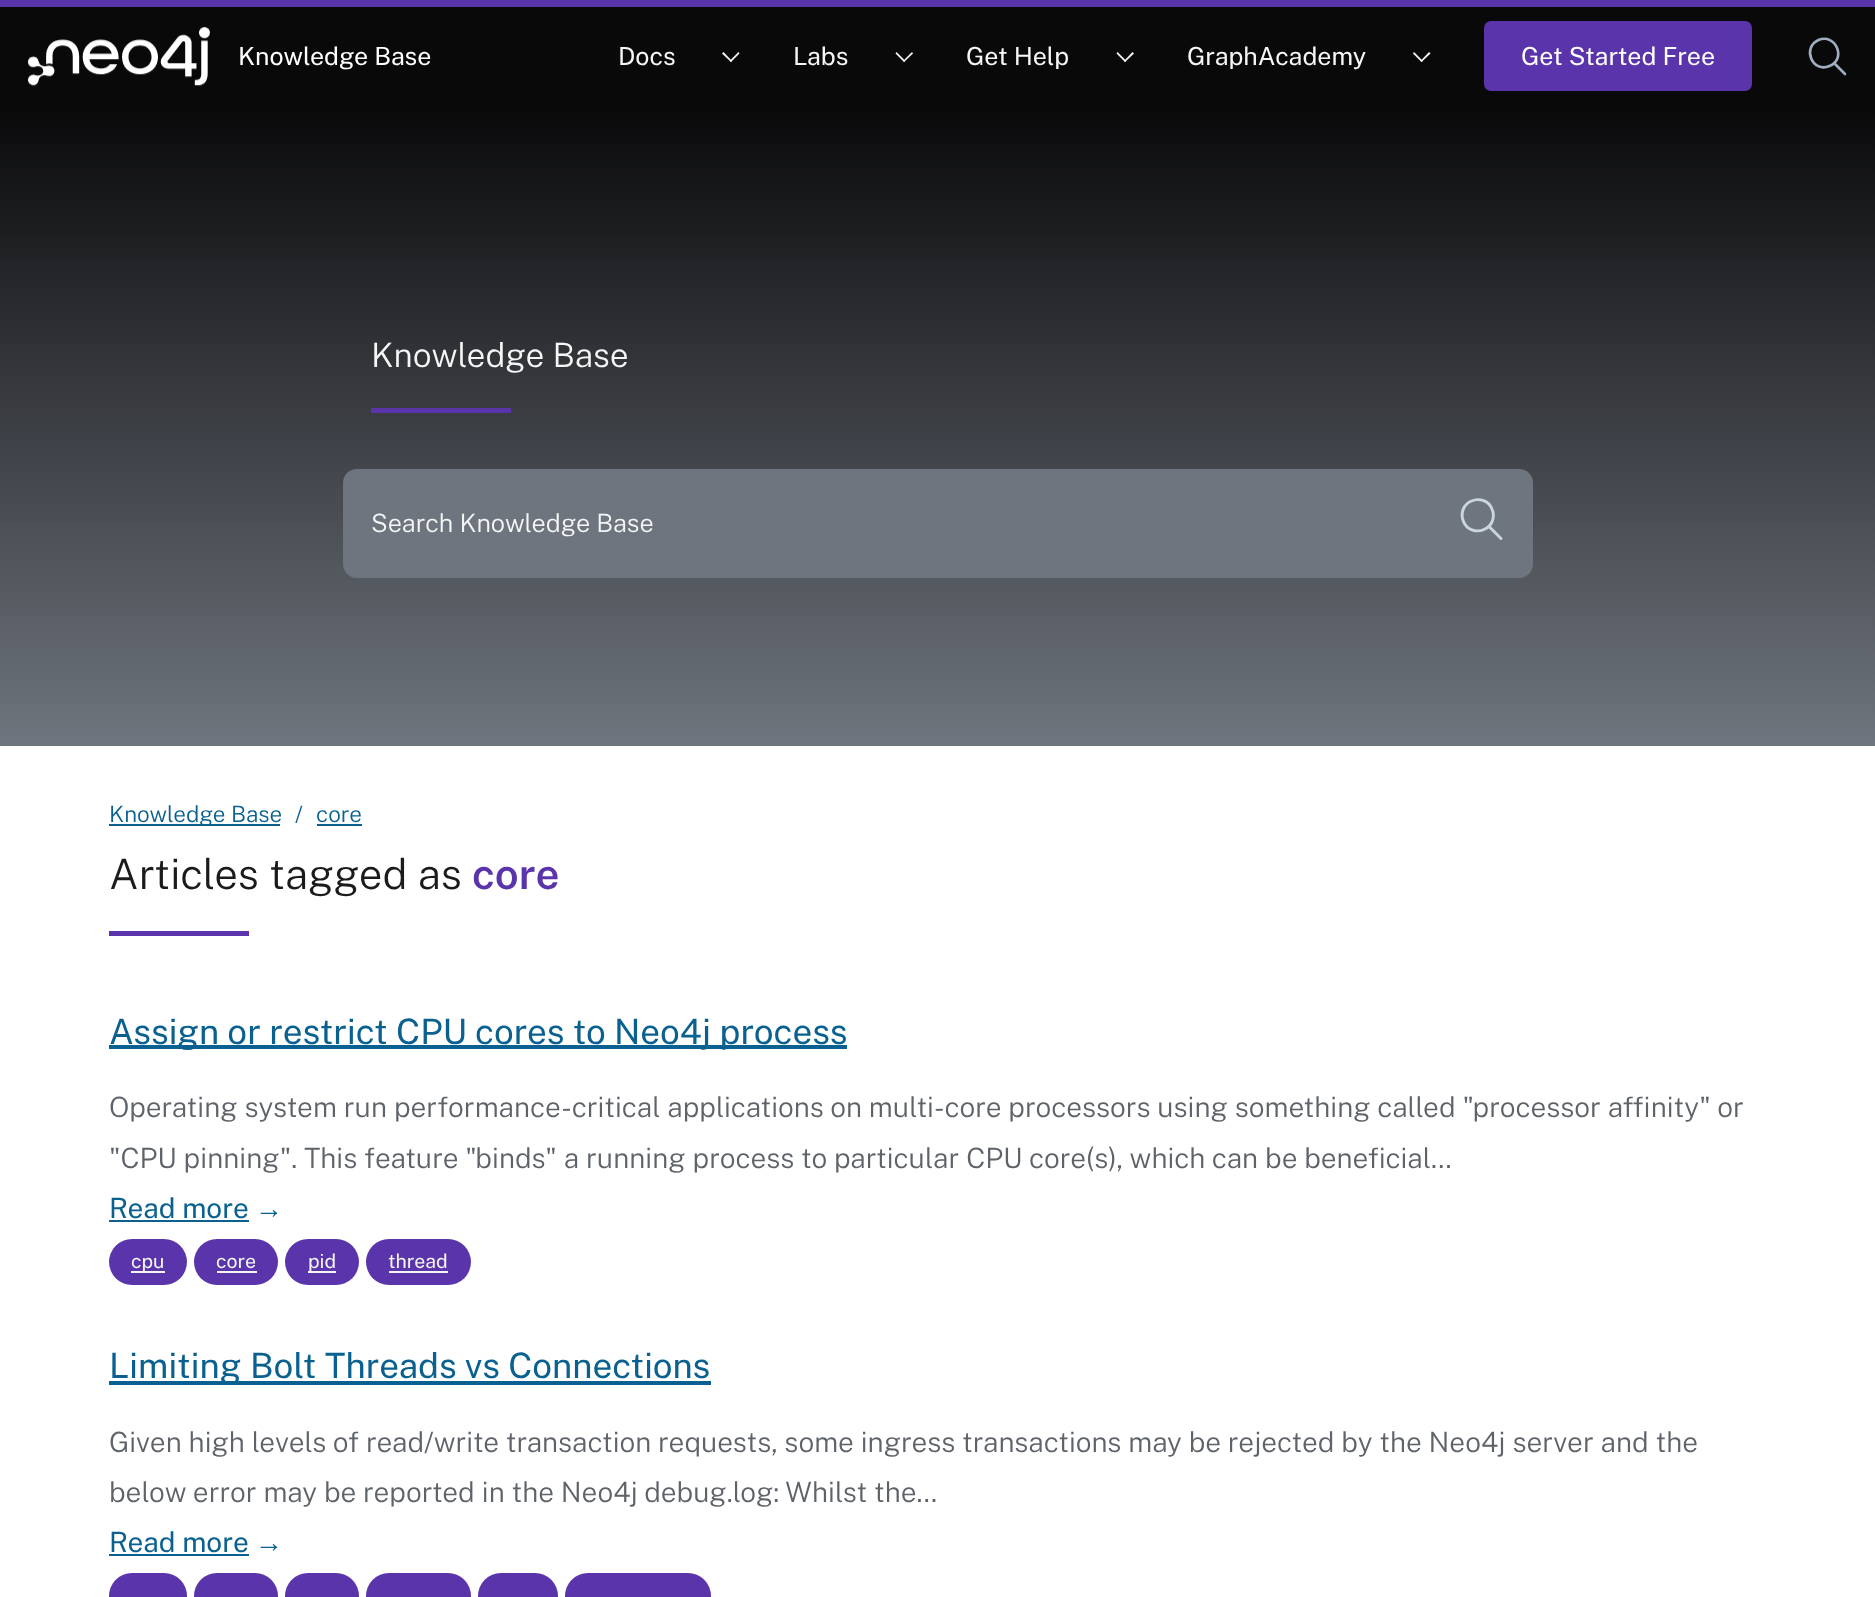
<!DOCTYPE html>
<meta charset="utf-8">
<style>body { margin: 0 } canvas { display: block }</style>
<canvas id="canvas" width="1875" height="1597"></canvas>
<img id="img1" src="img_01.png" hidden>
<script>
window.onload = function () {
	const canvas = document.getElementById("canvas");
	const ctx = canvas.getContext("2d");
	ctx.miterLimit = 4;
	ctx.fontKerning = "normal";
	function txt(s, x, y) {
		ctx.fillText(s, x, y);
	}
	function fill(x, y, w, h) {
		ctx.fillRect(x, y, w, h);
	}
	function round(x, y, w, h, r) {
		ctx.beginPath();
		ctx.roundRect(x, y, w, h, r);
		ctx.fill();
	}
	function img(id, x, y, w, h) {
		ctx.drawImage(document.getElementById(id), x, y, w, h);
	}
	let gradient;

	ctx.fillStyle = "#FFFFFF";
	fill(0, 0, 1875, 1597);
	ctx.fillStyle = "#09090A";
	fill(0, 7, 1875, 98);
	ctx.fillStyle = "#5A34AA";
	fill(0, 0, 1875, 7);
	img("img1", 28, 27, 182, 59);
	ctx.fillStyle = "#F5F6F6";
	ctx.beginPath();
	ctx.moveTo(729.5, 61);
	ctx.lineTo(738.5, 52);
	ctx.lineTo(739.5, 53.5);
	ctx.lineTo(731, 62);
	ctx.closePath();
	ctx.fill();
	ctx.beginPath();
	ctx.moveTo(722, 53.5);
	ctx.lineTo(723.5, 52);
	ctx.lineTo(732, 61);
	ctx.lineTo(731, 62);
	ctx.closePath();
	ctx.fill();
	ctx.beginPath();
	ctx.moveTo(903, 61);
	ctx.lineTo(912, 52);
	ctx.lineTo(913, 53.5);
	ctx.lineTo(904, 62);
	ctx.closePath();
	ctx.fill();
	ctx.beginPath();
	ctx.moveTo(895.5, 53.5);
	ctx.lineTo(896.5, 52);
	ctx.lineTo(905.5, 61);
	ctx.lineTo(904, 62);
	ctx.closePath();
	ctx.fill();
	ctx.beginPath();
	ctx.moveTo(1124, 61);
	ctx.lineTo(1132.5, 52);
	ctx.lineTo(1134, 53.5);
	ctx.lineTo(1125, 62);
	ctx.closePath();
	ctx.fill();
	ctx.beginPath();
	ctx.moveTo(1116.5, 53.5);
	ctx.lineTo(1117.5, 52);
	ctx.lineTo(1126.5, 61);
	ctx.lineTo(1125, 62);
	ctx.closePath();
	ctx.fill();
	ctx.beginPath();
	ctx.moveTo(1420.5, 61);
	ctx.lineTo(1429, 52);
	ctx.lineTo(1430.5, 53.5);
	ctx.lineTo(1421.5, 62);
	ctx.closePath();
	ctx.fill();
	ctx.beginPath();
	ctx.moveTo(1413, 53.5);
	ctx.lineTo(1414, 52);
	ctx.lineTo(1423, 61);
	ctx.lineTo(1421.5, 62);
	ctx.closePath();
	ctx.fill();
	ctx.fillStyle = "#5A34AA";
	round(1484, 21, 268, 70, 7);
	ctx.beginPath();
	ctx.moveTo(1818.5, 40);
	ctx.bezierCurveTo(1835.5, 33, 1847, 59, 1829.5, 66);
	ctx.bezierCurveTo(1812.5, 73.5, 1801.5, 47.5, 1818.5, 40);
	ctx.closePath();
	ctx.moveTo(1834, 63);
	ctx.lineTo(1845, 74);
	ctx.strokeStyle = "#A0AEC0";
	ctx.lineWidth = 2.6;
	ctx.lineCap = "round";
	ctx.lineJoin = "round";
	ctx.stroke();
	gradient = ctx.createLinearGradient(938, 105, 938, 746);
	gradient.addColorStop(0, "#09090A");
	gradient.addColorStop(1, "#6F757E");
	ctx.fillStyle = gradient;
	fill(0, 105, 1875, 641);
	ctx.fillStyle = "#5A34AA";
	fill(371, 408, 140, 5);
	ctx.fillStyle = "#6F757E";
	round(343, 469, 1190, 109, 14);
	ctx.beginPath();
	ctx.moveTo(1471.5, 501);
	ctx.bezierCurveTo(1479.5, 497.5, 1489, 501, 1492, 509);
	ctx.bezierCurveTo(1495.5, 517, 1492, 526.5, 1484, 529.5);
	ctx.bezierCurveTo(1476, 533, 1466.5, 529.5, 1463.5, 521.5);
	ctx.bezierCurveTo(1460, 513.5, 1463.5, 504, 1471.5, 501);
	ctx.closePath();
	ctx.moveTo(1489, 526.5);
	ctx.lineTo(1501, 538.5);
	ctx.strokeStyle = "#CBD5E0";
	ctx.lineWidth = 2.9;
	ctx.stroke();
	ctx.fillStyle = "#0A6190";
	fill(109, 824, 171, 2);
	fill(317, 824, 45, 2);
	ctx.fillStyle = "#5A34AA";
	fill(109, 931, 140, 5);
	ctx.fillStyle = "#0A6190";
	fill(109, 1045, 738, 4);
	fill(109, 1220, 140, 2);
	ctx.fillStyle = "#5A34AA";
	round(109, 1239, 78, 46, 23);
	ctx.fillStyle = "#F5F6F6";
	fill(131, 1271, 34, 2);
	ctx.fillStyle = "#5A34AA";
	round(194, 1239, 84, 46, 23);
	ctx.fillStyle = "#F5F6F6";
	fill(217, 1271, 40, 2);
	ctx.fillStyle = "#5A34AA";
	round(285, 1239, 74, 46, 23);
	ctx.fillStyle = "#F5F6F6";
	fill(308, 1271, 28, 2);
	ctx.fillStyle = "#5A34AA";
	round(366, 1239, 105, 46, 23);
	ctx.fillStyle = "#F5F6F6";
	fill(389, 1271, 59, 2);
	ctx.fillStyle = "#0A6190";
	fill(109, 1381, 602, 4);
	fill(109, 1554, 140, 2);
	ctx.fillStyle = "#5A34AA";
	round(109, 1573, 78, 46, 23);
	round(194, 1573, 84, 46, 23);
	round(285, 1573, 74, 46, 23);
	round(366, 1573, 105, 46, 23);
	round(478, 1573, 80, 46, 23);
	round(565, 1573, 146, 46, 23);
	ctx.font = "25px Public Sans";
	ctx.fillStyle = "#FFFFFF";
	txt("Knowledge Base", 238, 65);
	ctx.fillStyle = "#F5F6F6";
	txt("Docs", 618, 65);
	txt("Labs", 793, 65);
	txt("Get Help", 966, 65);
	txt("GraphAcademy", 1187, 65);
	ctx.fillStyle = "#FFFFFF";
	txt("Get Started Free", 1521, 65);
	ctx.font = "300 33.5px Public Sans";
	ctx.fillStyle = "#F5F6F6";
	txt("Knowledge Base", 371, 367);
	ctx.font = "300 25.25px Public Sans";
	txt("Search Knowledge Base", 371, 532);
	ctx.font = "300 22.5px Public Sans";
	ctx.fillStyle = "#0A6190";
	txt("Knowledge Base", 109, 822);
	txt("/", 295, 822);
	txt("core", 316, 822);
	ctx.font = "300 42px Public Sans";
	ctx.fillStyle = "#1A1B1D";
	txt("Articles tagged as", 109, 889);
	ctx.font = "600 42px Public Sans";
	ctx.fillStyle = "#5A34AA";
	txt("core", 472, 889);
	ctx.font = "35px Public Sans";
	ctx.fillStyle = "#0A6190";
	txt("Assign or restrict CPU cores to Neo4j process", 109, 1044);
	ctx.font = "300 28px Public Sans";
	ctx.fillStyle = "#5E636A";
	txt("Operating system run performance-critical applications on multi-core processors using something called \"processor affinity\" or", 109, 1117);
	txt("\"CPU pinning\". This feature \"binds\" a running process to particular CPU core(s), which can be beneficial…", 109, 1168);
	ctx.font = "28px Public Sans";
	ctx.fillStyle = "#0A6190";
	txt("Read more", 109, 1218);
	ctx.font = "28px Liberation Sans";
	txt("→", 255, 1218);
	ctx.font = "19.5px Public Sans";
	ctx.fillStyle = "#F5F6F6";
	txt("cpu", 131, 1268);
	txt("core", 216, 1268);
	txt("pid", 308, 1268);
	txt("thread", 388, 1268);
	ctx.font = "35px Public Sans";
	ctx.fillStyle = "#0A6190";
	txt("Limiting Bolt Threads vs Connections", 109, 1378);
	ctx.font = "300 28px Public Sans";
	ctx.fillStyle = "#5E636A";
	txt("Given high levels of read/write transaction requests, some ingress transactions may be rejected by the Neo4j server and the", 109, 1452);
	txt("below error may be reported in the Neo4j debug.log: Whilst the…", 109, 1502);
	ctx.font = "28px Public Sans";
	ctx.fillStyle = "#0A6190";
	txt("Read more", 109, 1552);
	ctx.font = "28px Liberation Sans";
	txt("→", 255, 1552);
};
</script>
